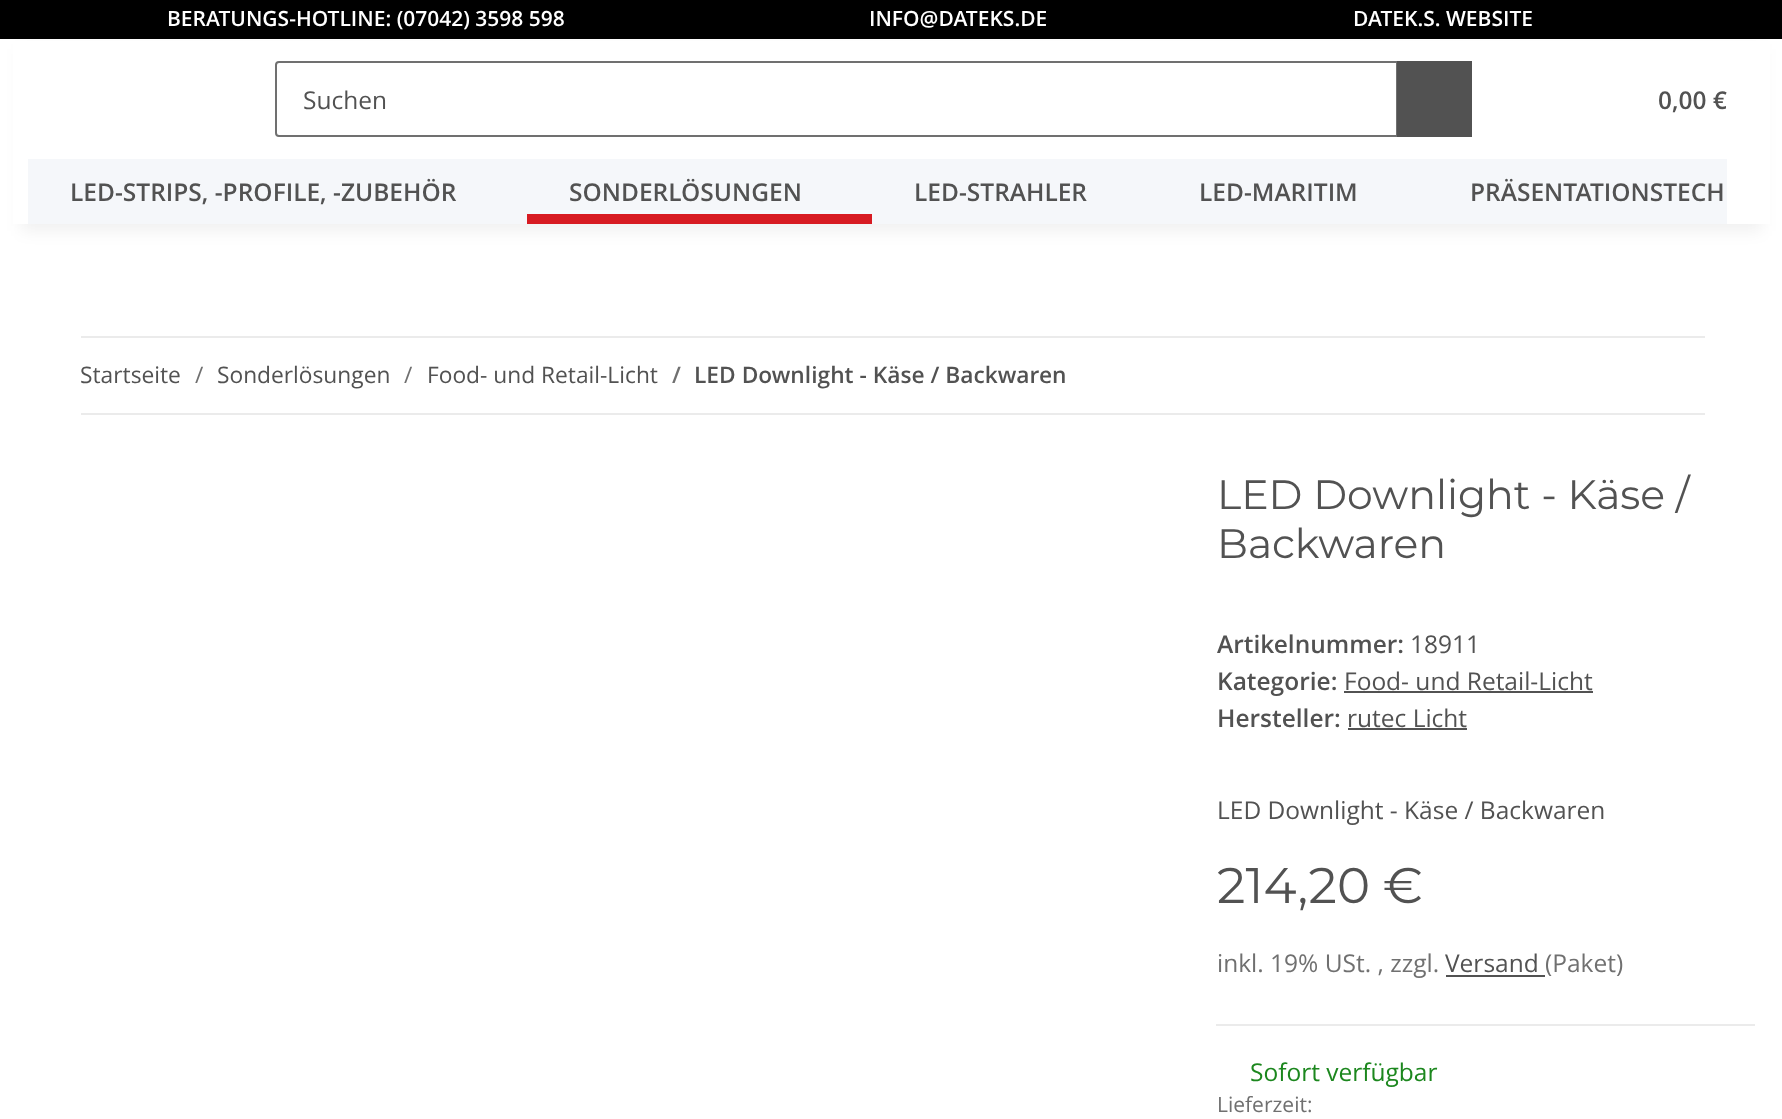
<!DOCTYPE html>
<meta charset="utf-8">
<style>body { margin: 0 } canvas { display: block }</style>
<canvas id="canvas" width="1782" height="1119"></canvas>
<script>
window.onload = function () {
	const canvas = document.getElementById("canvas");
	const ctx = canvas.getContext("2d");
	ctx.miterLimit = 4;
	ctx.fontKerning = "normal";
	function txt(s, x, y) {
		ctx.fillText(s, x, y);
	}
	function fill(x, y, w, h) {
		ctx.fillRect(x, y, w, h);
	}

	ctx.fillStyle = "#FFFFFF";
	fill(0, 0, 1782, 1119);
	ctx.fillStyle = "rgba(0, 0, 0, 0.06)";
	ctx.filter = "blur(8px)";
	ctx.beginPath();
	ctx.rect(21, 49, 1741, 182);
	ctx.fill();
	ctx.filter = "none";
	ctx.fillStyle = "#FFFFFF";
	fill(13, 41, 1757, 183);
	ctx.fillStyle = "#000000";
	fill(0, 0, 1782, 39);
	ctx.beginPath();
	ctx.roundRect(276, 62, 1121, 74, [3, 0, 0, 3]);
	ctx.strokeStyle = "#707070";
	ctx.lineWidth = 2;
	ctx.stroke();
	ctx.fillStyle = "#525252";
	fill(1397, 61, 75, 76);
	ctx.fillStyle = "#F5F7FA";
	fill(28, 159, 1699, 65);
	ctx.fillStyle = "#D71B22";
	fill(527, 214, 345, 10);
	ctx.fillStyle = "#EBEBEB";
	fill(81, 336, 1624, 2);
	fill(81, 413, 1624, 2);
	ctx.fillStyle = "#525252";
	fill(1344, 691, 249, 2);
	fill(1348, 728, 119, 2);
	fill(1446, 975, 99, 2);
	ctx.fillStyle = "#EBEBEB";
	fill(1216, 1024, 539, 2);
	ctx.font = "600 21px Open Sans";
	ctx.fillStyle = "#FFFFFF";
	txt("BERATUNGS-HOTLINE: (07042) 3598 598", 167, 26);
	txt("INFO@DATEKS.DE", 869, 26);
	txt("DATEK.S. WEBSITE", 1353, 26);
	ctx.font = "24.5px Open Sans";
	ctx.fillStyle = "#525252";
	txt("Suchen", 303, 109);
	ctx.font = "600 24.5px Open Sans";
	txt("0,00 €", 1658, 109);
	txt("LED-STRIPS, -PROFILE, -ZUBEHÖR", 70, 201);
	txt("SONDERLÖSUNGEN", 569, 201);
	txt("LED-STRAHLER", 914, 201);
	txt("LED-MARITIM", 1199, 201);
	txt("PRÄSENTATIONSTECH", 1470, 201);
	ctx.font = "22.75px Open Sans";
	txt("Startseite", 80, 383);
	ctx.fillStyle = "#707070";
	txt("/", 195, 383);
	ctx.fillStyle = "#525252";
	txt("Sonderlösungen", 217, 383);
	ctx.fillStyle = "#707070";
	txt("/", 404, 383);
	ctx.fillStyle = "#525252";
	txt("Food- und Retail-Licht", 427, 383);
	ctx.font = "600 22.75px Open Sans";
	ctx.fillStyle = "#707070";
	txt("/", 672, 383);
	ctx.fillStyle = "#525252";
	txt("LED Downlight - Käse / Backwaren", 694, 383);
	ctx.font = "41px Montserrat";
	txt("LED Downlight - Käse /", 1217, 509);
	txt("Backwaren", 1217, 558);
	ctx.font = "600 24.5px Open Sans";
	txt("Artikelnummer:", 1217, 653);
	ctx.font = "24.5px Open Sans";
	txt("18911", 1410, 653);
	ctx.font = "600 24.5px Open Sans";
	txt("Kategorie:", 1217, 690);
	ctx.font = "24.5px Open Sans";
	txt("Food- und Retail-Licht", 1344, 690);
	ctx.font = "600 24.5px Open Sans";
	txt("Hersteller:", 1217, 727);
	ctx.font = "24.5px Open Sans";
	txt("rutec Licht", 1347, 727);
	txt("LED Downlight - Käse / Backwaren", 1217, 819);
	ctx.font = "50px Montserrat";
	txt("214,20 €", 1217, 903);
	ctx.font = "24.5px Open Sans";
	ctx.fillStyle = "#707070";
	txt("inkl. 19% USt. , zzgl.", 1217, 972);
	ctx.fillStyle = "#525252";
	txt("Versand", 1445, 972);
	ctx.fillStyle = "#707070";
	txt("(Paket)", 1545, 972);
	ctx.fillStyle = "#1C871E";
	txt("Sofort verfügbar", 1250, 1081);
	ctx.font = "21px Open Sans";
	ctx.fillStyle = "#707070";
	txt("Lieferzeit:", 1217, 1112);
};
</script>
